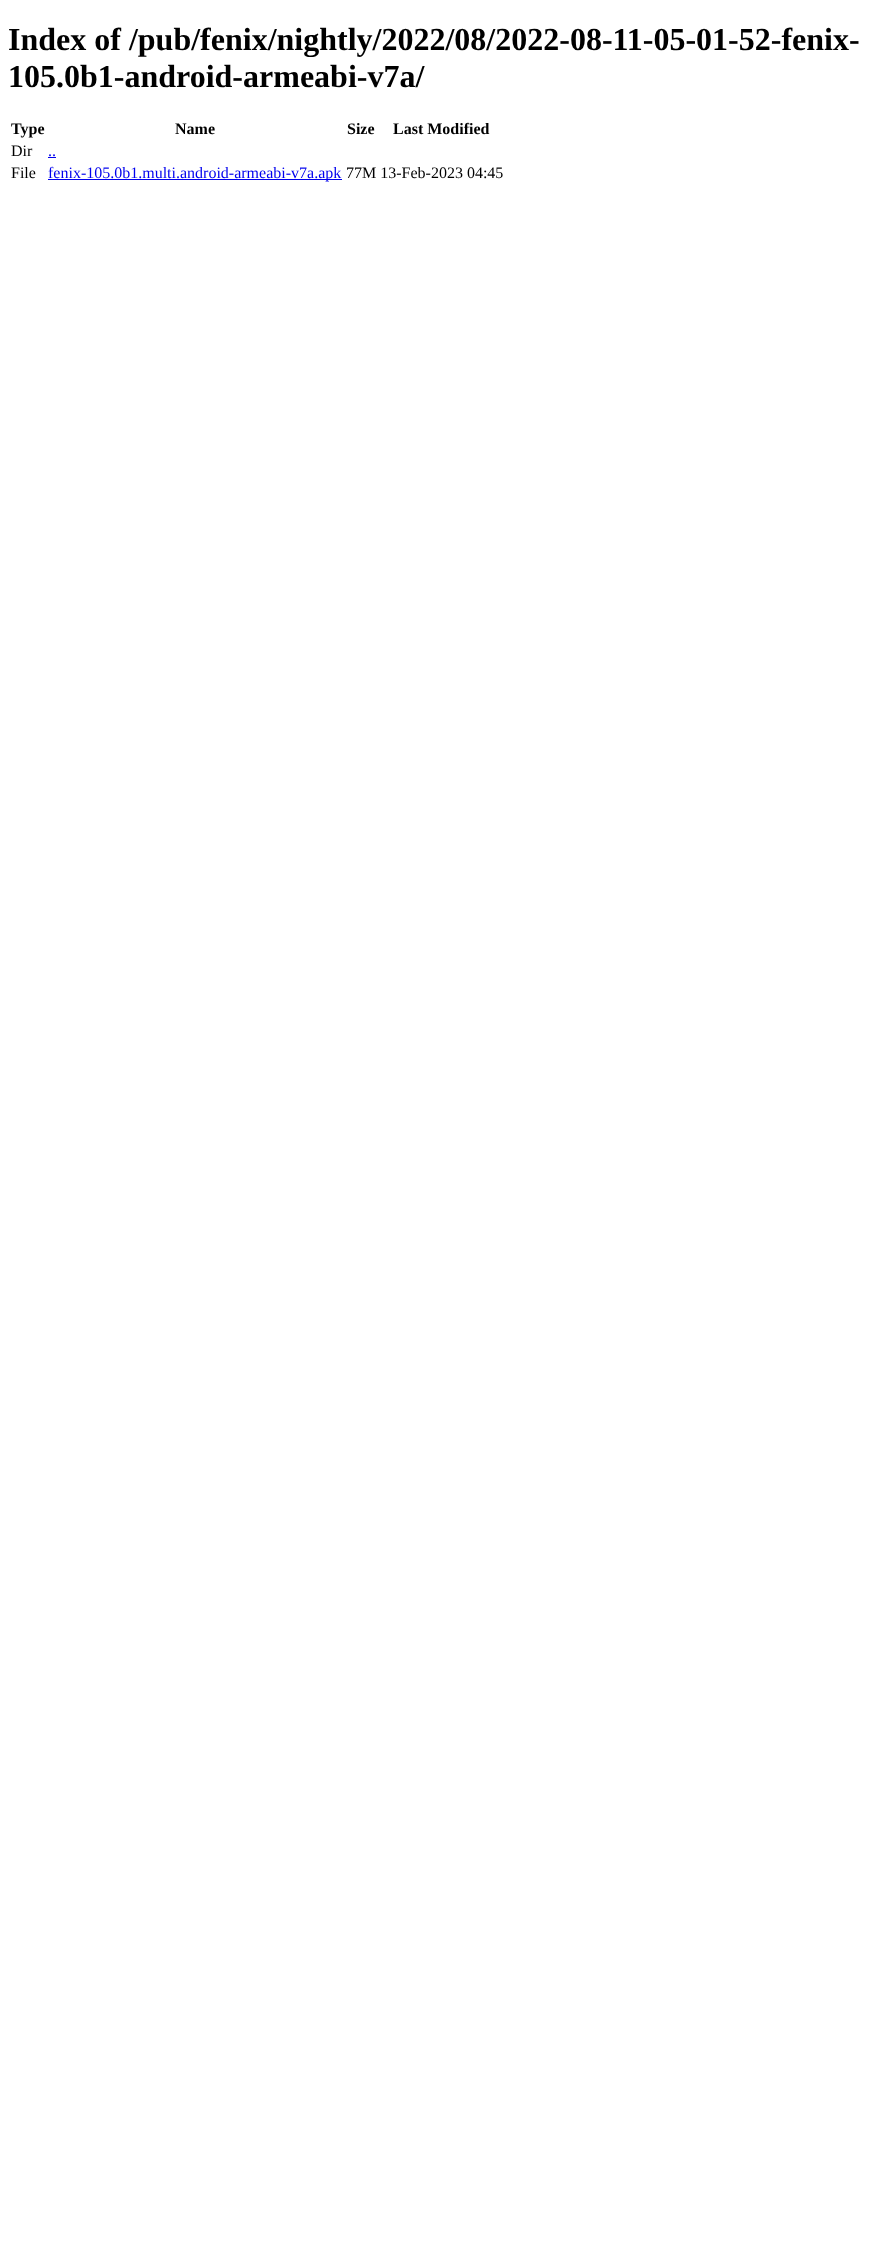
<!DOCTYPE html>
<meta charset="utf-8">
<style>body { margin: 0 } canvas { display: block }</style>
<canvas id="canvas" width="879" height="2262"></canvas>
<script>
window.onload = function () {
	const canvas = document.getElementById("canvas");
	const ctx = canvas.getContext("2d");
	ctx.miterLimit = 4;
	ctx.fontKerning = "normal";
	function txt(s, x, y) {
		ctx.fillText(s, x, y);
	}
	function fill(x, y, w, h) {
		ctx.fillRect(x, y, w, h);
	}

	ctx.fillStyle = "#FFFFFF";
	fill(0, 0, 879, 2262);
	ctx.fillStyle = "#0000EE";
	fill(48, 157, 8, 1);
	fill(48, 179, 294, 1);
	ctx.font = "bold 32px Liberation Serif";
	ctx.fillStyle = "#000000";
	txt("Index of /pub/fenix/nightly/2022/08/2022-08-11-05-01-52-fenix-", 8, 50);
	txt("105.0b1-android-armeabi-v7a/", 8, 87);
	ctx.font = "bold 16px Liberation Serif";
	txt("Type", 11, 134);
	txt("Name", 175, 134);
	txt("Size", 347, 134);
	txt("Last Modified", 393, 134);
	ctx.font = "16px Liberation Serif";
	txt("Dir", 11, 156);
	ctx.fillStyle = "#0000EE";
	txt("..", 48, 156);
	ctx.fillStyle = "#000000";
	txt("File", 11, 178);
	ctx.fillStyle = "#0000EE";
	txt("fenix-105.0b1.multi.android-armeabi-v7a.apk", 48, 178);
	ctx.fillStyle = "#000000";
	txt("77M 13-Feb-2023 04:45", 346, 178);
};
</script>
